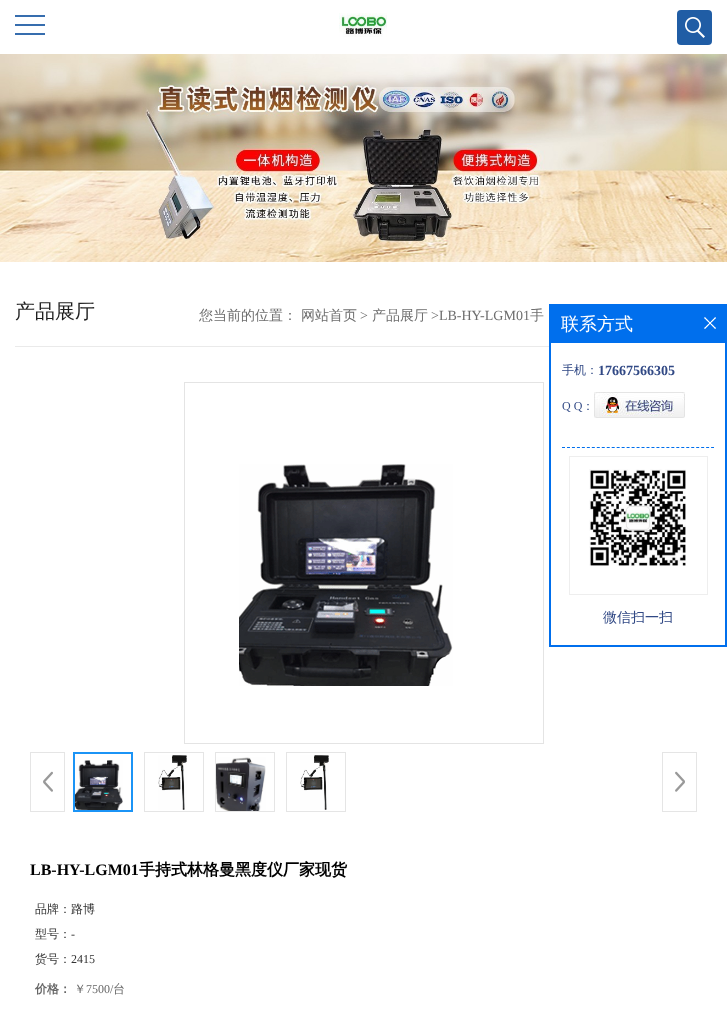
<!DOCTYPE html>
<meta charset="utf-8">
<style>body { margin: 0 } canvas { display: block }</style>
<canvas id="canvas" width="727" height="1009"></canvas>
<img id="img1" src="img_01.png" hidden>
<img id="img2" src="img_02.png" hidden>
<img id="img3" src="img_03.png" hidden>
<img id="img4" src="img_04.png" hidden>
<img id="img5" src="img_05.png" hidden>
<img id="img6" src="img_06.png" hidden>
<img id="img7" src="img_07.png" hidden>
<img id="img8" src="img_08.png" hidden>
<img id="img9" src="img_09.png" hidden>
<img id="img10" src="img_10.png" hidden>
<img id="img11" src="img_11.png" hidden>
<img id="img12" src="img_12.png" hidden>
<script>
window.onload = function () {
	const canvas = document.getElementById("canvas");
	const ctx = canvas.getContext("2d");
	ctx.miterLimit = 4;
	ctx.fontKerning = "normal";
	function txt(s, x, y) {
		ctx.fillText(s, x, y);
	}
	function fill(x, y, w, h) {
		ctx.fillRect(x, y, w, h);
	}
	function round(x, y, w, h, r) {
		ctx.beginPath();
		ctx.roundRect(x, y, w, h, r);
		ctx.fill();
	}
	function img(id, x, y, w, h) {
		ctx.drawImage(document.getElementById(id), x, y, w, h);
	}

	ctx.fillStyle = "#FFFFFF";
	fill(0, 0, 727, 1009);
	ctx.fillStyle = "#366DAE";
	fill(15, 15, 30, 2);
	fill(15, 24, 30, 2);
	fill(15, 33, 30, 2);
	img("img1", 339, 13, 48, 24);
	ctx.fillStyle = "#205DA5";
	round(677, 10, 35, 35, 4);
	img("img2", 685, 17, 20, 21);
	img("img3", 0, 54, 727, 208);
	ctx.fillStyle = "#EAEAEA";
	fill(15, 346, 534, 1);
	ctx.strokeStyle = "#E4E4E4";
	ctx.strokeRect(184.5, 382.5, 359, 361);
	img("img4", 239, 464, 214, 222);
	img("img5", 43, 771, 10, 21);
	ctx.strokeStyle = "#E5E5E5";
	ctx.strokeRect(30.5, 752.5, 34, 59);
	ctx.strokeStyle = "#1B94F6";
	ctx.lineWidth = 2;
	ctx.strokeRect(74, 753, 58, 58);
	img("img6", 75, 760, 48, 50);
	ctx.strokeStyle = "#E5E5E5";
	ctx.lineWidth = 1;
	ctx.strokeRect(144.5, 752.5, 59, 59);
	img("img7", 158, 755, 29, 55);
	ctx.strokeRect(215.5, 752.5, 59, 59);
	img("img8", 216, 757, 50, 54);
	ctx.strokeRect(286.5, 752.5, 59, 59);
	img("img7", 300, 755, 29, 55);
	img("img9", 675, 771, 10, 21);
	ctx.strokeRect(662.5, 752.5, 34, 59);
	ctx.fillStyle = "#006FED";
	fill(549, 304, 178, 343);
	img("img10", 704, 317, 12, 12);
	ctx.fillStyle = "#FFFFFF";
	fill(551, 343, 174, 302);
	ctx.beginPath();
	ctx.moveTo(562, 447.5);
	ctx.lineTo(714, 447.5);
	ctx.strokeStyle = "#006FED";
	ctx.setLineDash([3, 1.97]);
	ctx.stroke();
	img("img11", 594, 392, 91, 26);
	ctx.strokeStyle = "#EEEEEE";
	ctx.setLineDash([]);
	ctx.strokeRect(569.5, 456.5, 138, 138);
	img("img12", 589, 469, 97, 97);
	ctx.font = "500 20px WenQuanYi Zen Hei";
	ctx.fillStyle = "#1F1F1F";
	txt("产品展厅", 15, 318);
	ctx.font = "500 14px WenQuanYi Zen Hei";
	ctx.fillStyle = "#6E6E6E";
	txt("您当前的位置：", 199, 320);
	txt("网站首页", 301, 320);
	ctx.font = "14px Liberation Serif";
	txt(">", 360, 320);
	ctx.font = "500 14px WenQuanYi Zen Hei";
	txt("产品展厅", 372, 320);
	ctx.font = "14px Liberation Serif";
	txt(">LB-HY-LGM01", 431, 320);
	ctx.font = "500 14px WenQuanYi Zen Hei";
	txt("手", 530, 320);
	ctx.font = "bold 16px Liberation Serif";
	ctx.fillStyle = "#000000";
	txt("LB-HY-LGM01", 30, 875);
	ctx.font = "bold 16px WenQuanYi Zen Hei";
	txt("手持式林格曼黑度仪厂家现货", 139, 875);
	ctx.font = "500 12px WenQuanYi Zen Hei";
	ctx.fillStyle = "#333333";
	txt("品牌：路博", 35, 913);
	txt("型号：", 35, 938);
	ctx.font = "12px Liberation Serif";
	txt("-", 71, 938);
	ctx.font = "500 12px WenQuanYi Zen Hei";
	txt("货号：", 35, 963);
	ctx.font = "12px Liberation Serif";
	txt("2415", 71, 963);
	ctx.font = "bold 12px WenQuanYi Zen Hei";
	ctx.fillStyle = "#666666";
	txt("价格：", 35, 993);
	ctx.font = "500 12px WenQuanYi Zen Hei";
	txt("￥", 74, 993);
	ctx.font = "12px Liberation Serif";
	txt("7500/", 86, 993);
	ctx.font = "500 12px WenQuanYi Zen Hei";
	txt("台", 113, 993);
	ctx.font = "500 18px WenQuanYi Zen Hei";
	ctx.fillStyle = "#FFFFFF";
	txt("联系方式", 561, 330);
	ctx.font = "500 12px WenQuanYi Zen Hei";
	ctx.fillStyle = "#314985";
	txt("手机：", 562, 374);
	ctx.font = "bold 14px Liberation Serif";
	txt("17667566305", 598, 375);
	ctx.font = "12px Liberation Serif";
	txt("Q Q", 562, 410);
	ctx.font = "500 12px WenQuanYi Zen Hei";
	txt("：", 582, 410);
	ctx.font = "500 14px WenQuanYi Zen Hei";
	txt("微信扫一扫", 603, 622);
};
</script>
